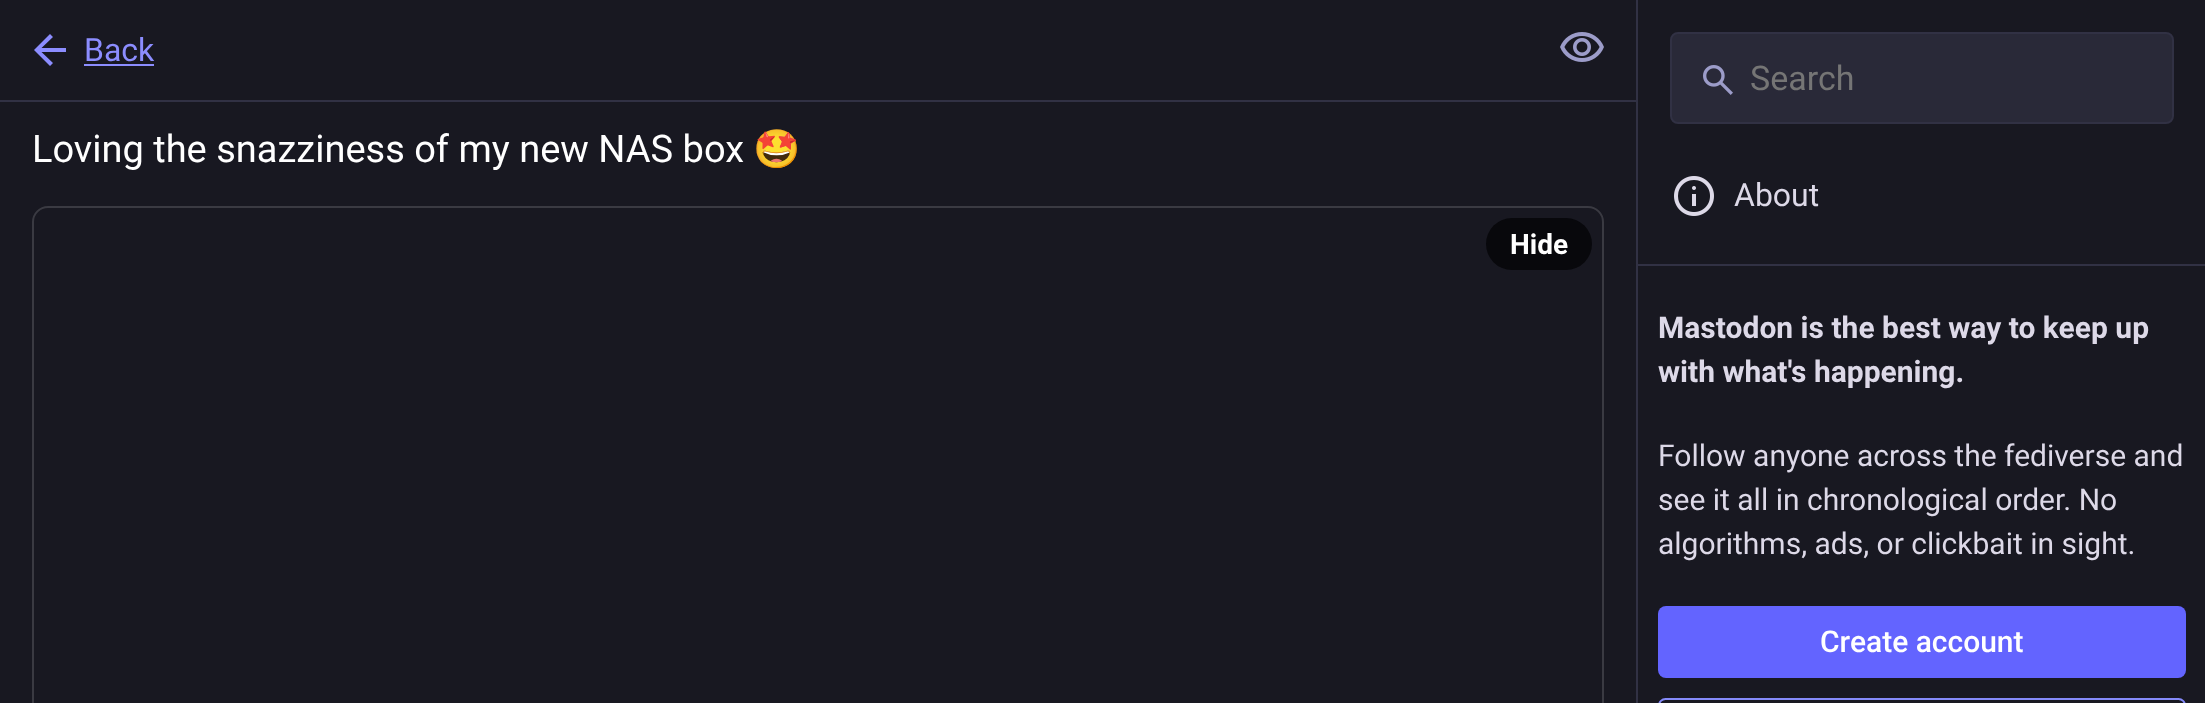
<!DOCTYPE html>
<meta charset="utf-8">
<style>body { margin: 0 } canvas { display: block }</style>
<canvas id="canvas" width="2205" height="703"></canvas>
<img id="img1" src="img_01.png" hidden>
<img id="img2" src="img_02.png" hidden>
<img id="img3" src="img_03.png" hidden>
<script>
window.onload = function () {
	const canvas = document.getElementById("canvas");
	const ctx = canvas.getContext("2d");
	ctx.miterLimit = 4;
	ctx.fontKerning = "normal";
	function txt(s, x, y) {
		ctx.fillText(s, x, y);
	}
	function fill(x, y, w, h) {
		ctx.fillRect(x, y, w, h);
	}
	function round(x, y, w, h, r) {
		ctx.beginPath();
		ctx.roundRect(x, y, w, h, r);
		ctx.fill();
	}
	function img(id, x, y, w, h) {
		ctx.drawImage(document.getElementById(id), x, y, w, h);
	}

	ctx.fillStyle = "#181821";
	fill(0, 0, 2205, 703);
	ctx.fillStyle = "#313144";
	fill(0, 100, 1636, 2);
	ctx.fillStyle = "#8C8DFF";
	ctx.beginPath();
	ctx.moveTo(41.5, 52);
	ctx.lineTo(53, 63);
	ctx.lineTo(50, 66);
	ctx.lineTo(34, 50);
	ctx.lineTo(50, 34);
	ctx.lineTo(53, 37);
	ctx.lineTo(41.5, 48);
	ctx.lineTo(66, 48);
	ctx.lineTo(66, 52);
	ctx.closePath();
	ctx.fill();
	fill(84, 64, 70, 2);
	img("img1", 1560, 32, 44, 30);
	ctx.beginPath();
	ctx.roundRect(33, 207, 1570, 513, 15);
	ctx.strokeStyle = "#3A3A42";
	ctx.lineWidth = 2;
	ctx.stroke();
	ctx.fillStyle = "#08080C";
	round(1486, 218, 106, 52, 26);
	ctx.fillStyle = "#313144";
	fill(1636, 0, 2, 703);
	ctx.fillStyle = "#292938";
	ctx.beginPath();
	ctx.roundRect(1671, 33, 502, 90, 7);
	ctx.fill();
	ctx.strokeStyle = "#313144";
	ctx.stroke();
	img("img2", 1703, 65, 30, 30);
	img("img3", 1674, 176, 40, 40);
	ctx.fillStyle = "#313144";
	fill(1638, 264, 567, 2);
	ctx.fillStyle = "#6364FF";
	round(1658, 606, 528, 72, 8);
	ctx.beginPath();
	ctx.roundRect(1659, 699, 526, 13, 7);
	ctx.strokeStyle = "#858AFA";
	ctx.stroke();
	ctx.font = "32px Roboto";
	ctx.fillStyle = "#8C8DFF";
	txt("Back", 84, 61);
	ctx.font = "38px Roboto";
	ctx.fillStyle = "#FFFFFF";
	txt("Loving the snazziness of my new NAS box", 32, 162);
	ctx.font = "38px Noto Color Emoji";
	txt("🤩", 753, 162);
	ctx.font = "bold 28px Roboto";
	txt("Hide", 1510, 254);
	ctx.font = "34px Roboto";
	ctx.fillStyle = "#757575";
	txt("Search", 1750, 90);
	ctx.font = "32px Roboto";
	ctx.fillStyle = "#DDD9E8";
	txt("About", 1734, 206);
	ctx.font = "bold 30px Roboto";
	txt("Mastodon is the best way to keep up", 1658, 338);
	txt("with what's happening.", 1658, 382);
	ctx.font = "30px Roboto";
	txt("Follow anyone across the fediverse and", 1658, 466);
	txt("see it all in chronological order. No", 1658, 510);
	txt("algorithms, ads, or clickbait in sight.", 1658, 554);
	ctx.font = "500 30px Roboto";
	ctx.fillStyle = "#FFFFFF";
	txt("Create account", 1820, 652);
};
</script>
